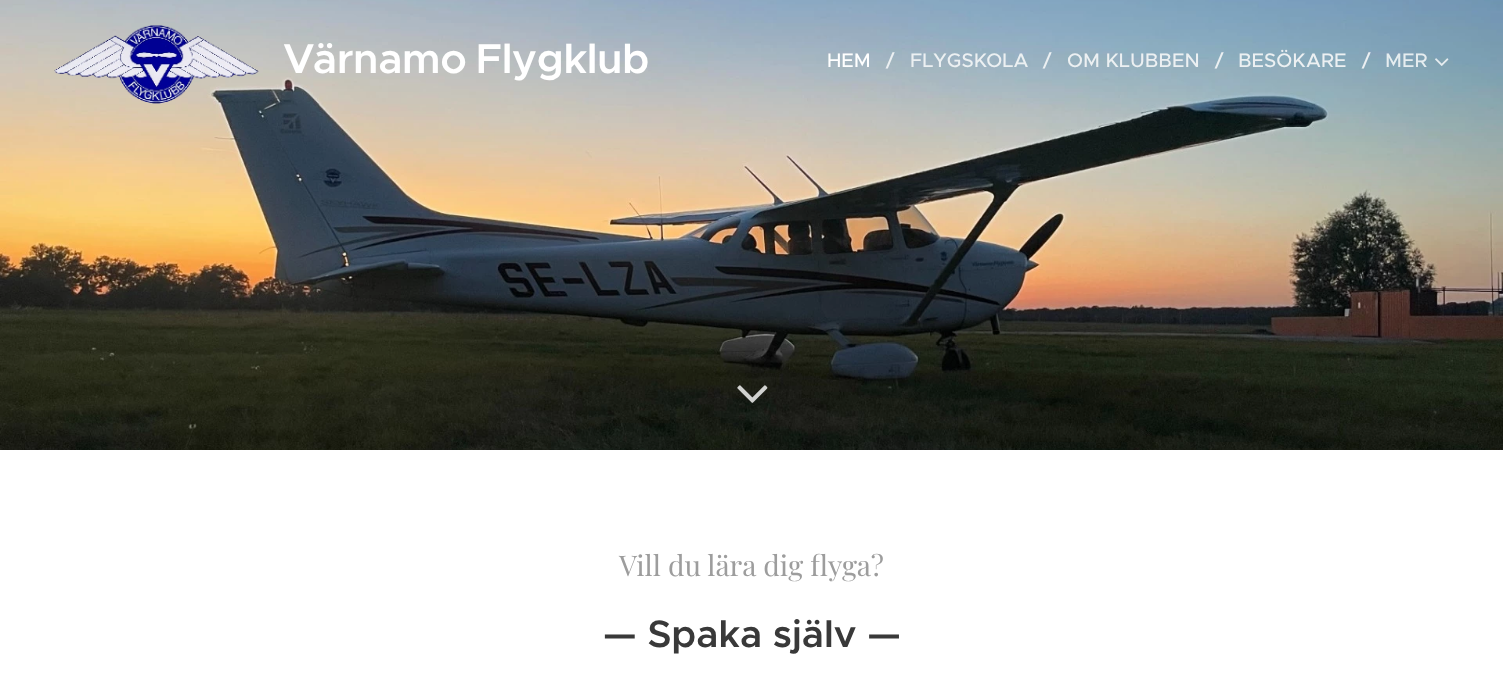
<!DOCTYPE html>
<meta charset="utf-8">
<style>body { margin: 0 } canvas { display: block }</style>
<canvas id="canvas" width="1503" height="682"></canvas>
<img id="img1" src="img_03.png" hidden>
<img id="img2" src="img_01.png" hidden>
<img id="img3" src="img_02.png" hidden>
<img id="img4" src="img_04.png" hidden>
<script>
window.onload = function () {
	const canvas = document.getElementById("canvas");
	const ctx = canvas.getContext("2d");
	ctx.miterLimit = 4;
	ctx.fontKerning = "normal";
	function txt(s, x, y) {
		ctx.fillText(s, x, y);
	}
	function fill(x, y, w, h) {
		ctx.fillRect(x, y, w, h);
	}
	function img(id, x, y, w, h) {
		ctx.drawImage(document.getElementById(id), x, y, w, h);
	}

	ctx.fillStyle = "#FFFFFF";
	fill(0, 0, 1503, 682);
	img("img1", 0, 0, 1503, 450);
	img("img2", 54, 25, 205, 79);
	img("img3", 1435, 58, 14, 8);
	img("img4", 737, 385, 31, 18);
	ctx.letterSpacing = "-0.4px";
	ctx.wordSpacing = "-2px";
	ctx.font = "600 42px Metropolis";
	txt("Värnamo Flygklub", 283, 73);
	ctx.letterSpacing = "0px";
	ctx.wordSpacing = "0px";
	ctx.font = "500 19.75px Metropolis";
	txt("HEM", 827, 67);
	ctx.fillStyle = "#ECF0F2";
	txt("/", 886, 67);
	txt("FLYGSKOLA", 910, 67);
	txt("/", 1043, 67);
	txt("OM KLUBBEN", 1067, 67);
	txt("/", 1215, 67);
	txt("BESÖKARE", 1238, 67);
	txt("/", 1362, 67);
	ctx.fillStyle = "#E6EDF0";
	txt("MER", 1385, 67);
	ctx.font = "28.5px Playfair Display";
	ctx.fillStyle = "#9D9D9D";
	txt("Vill du lära dig flyga?", 619, 576);
	ctx.font = "600 38.25px Metropolis";
	ctx.fillStyle = "#393939";
	txt("— Spaka själv —", 603, 647);
};
</script>
